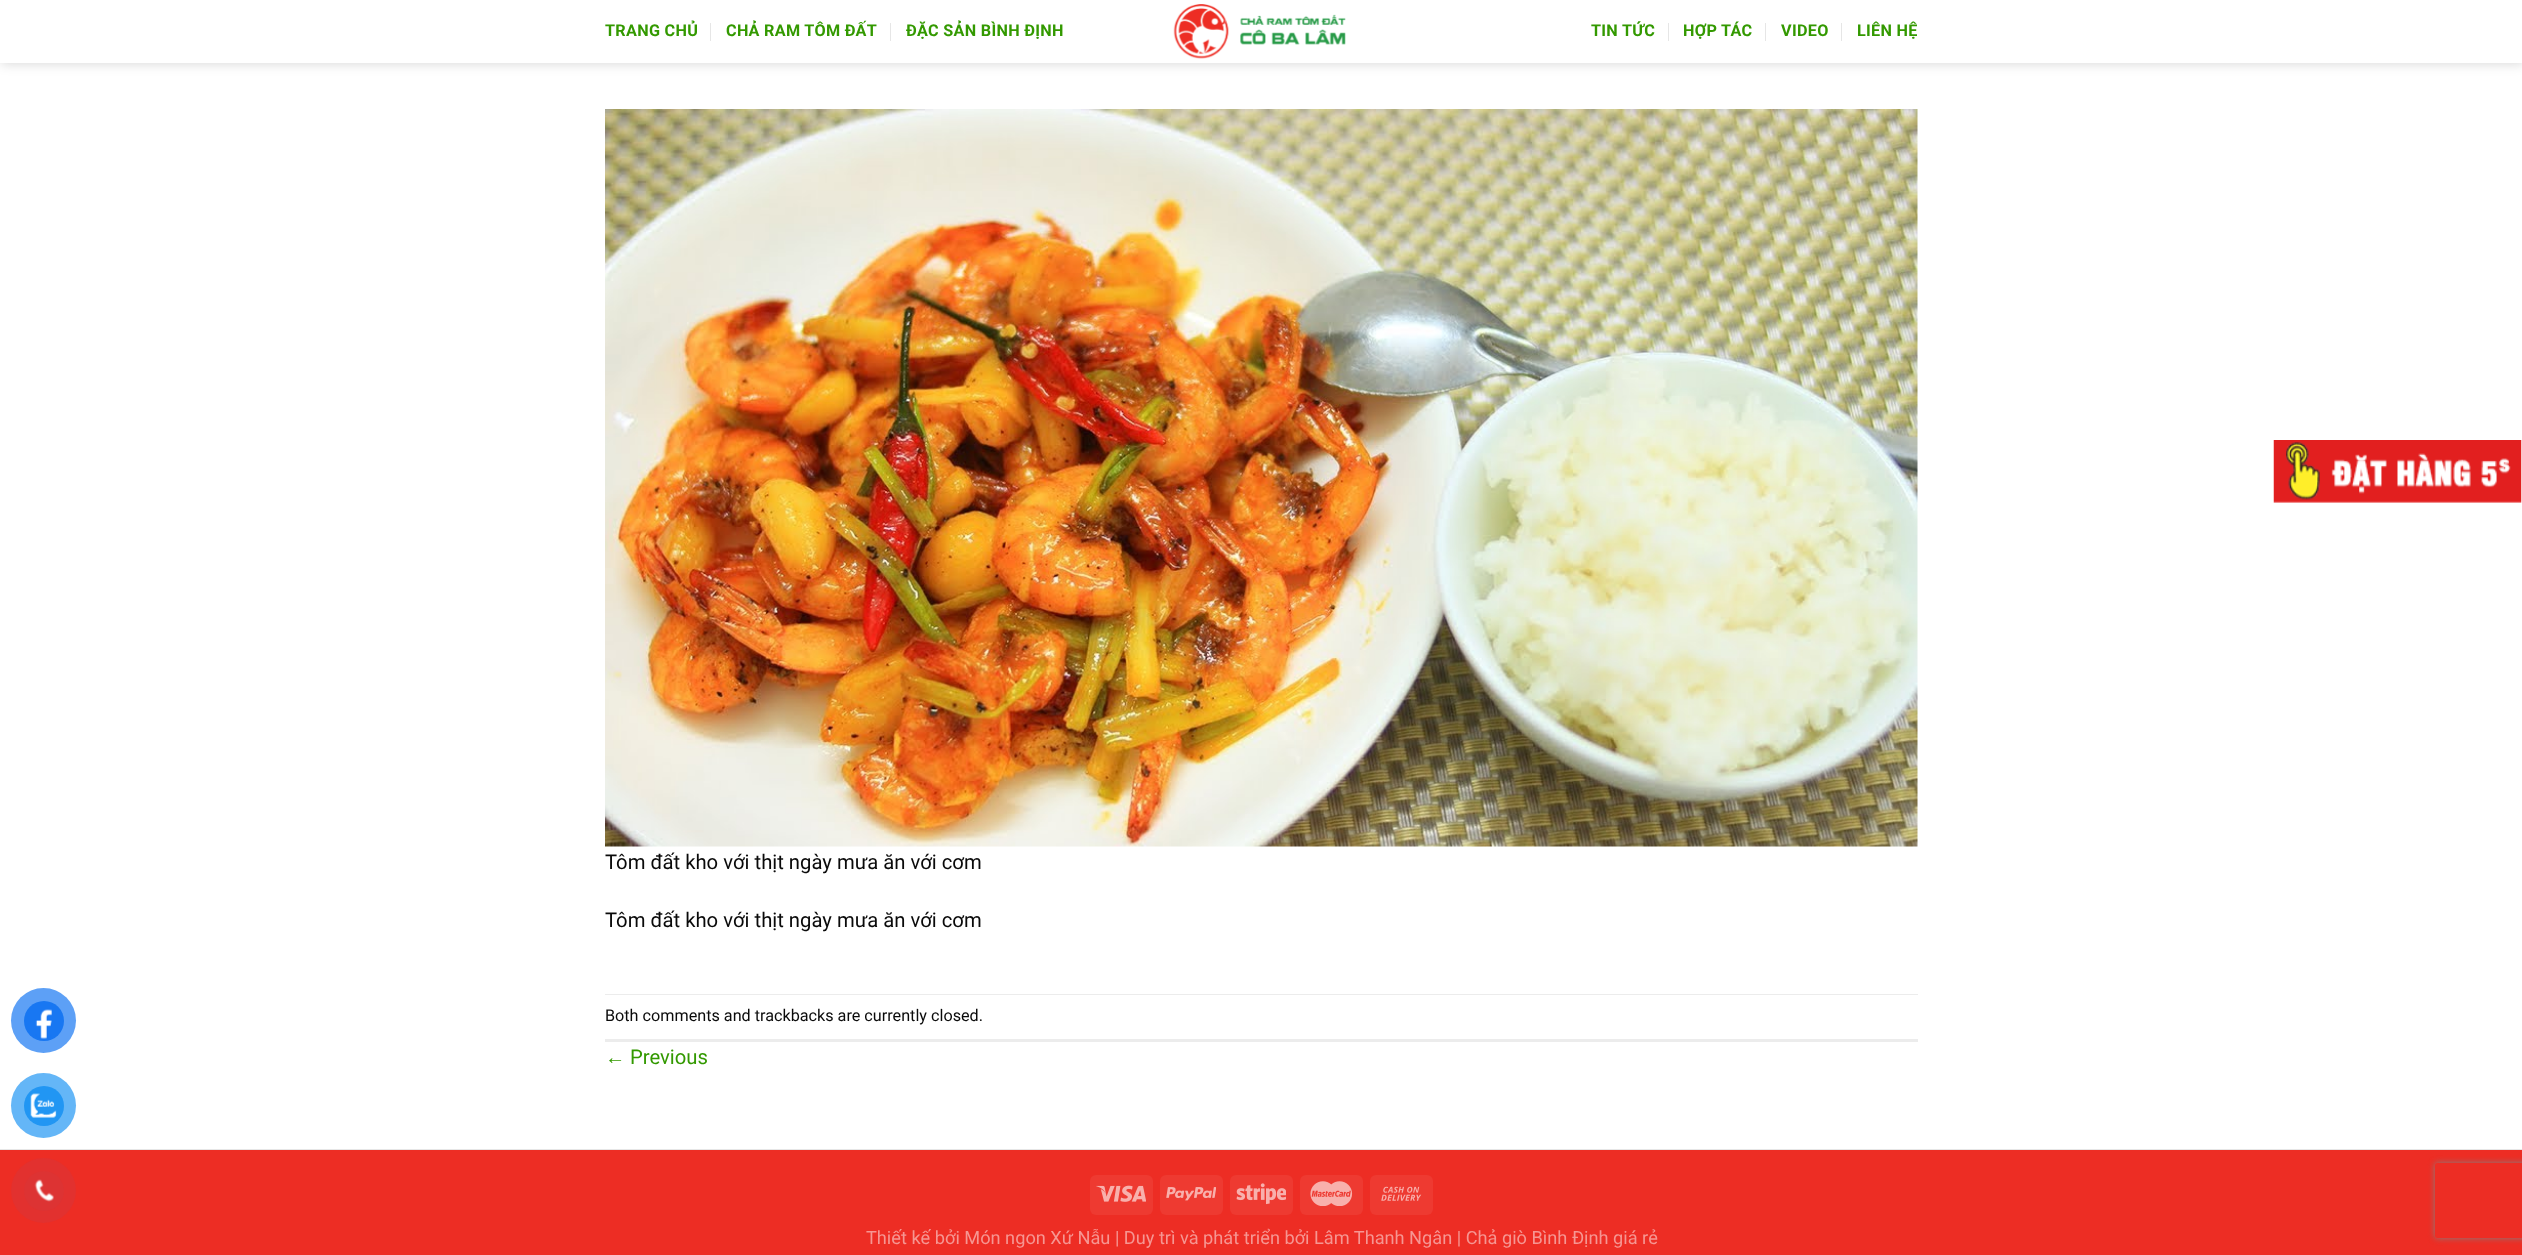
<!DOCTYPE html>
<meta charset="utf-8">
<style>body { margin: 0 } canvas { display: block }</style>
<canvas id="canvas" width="2522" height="1255"></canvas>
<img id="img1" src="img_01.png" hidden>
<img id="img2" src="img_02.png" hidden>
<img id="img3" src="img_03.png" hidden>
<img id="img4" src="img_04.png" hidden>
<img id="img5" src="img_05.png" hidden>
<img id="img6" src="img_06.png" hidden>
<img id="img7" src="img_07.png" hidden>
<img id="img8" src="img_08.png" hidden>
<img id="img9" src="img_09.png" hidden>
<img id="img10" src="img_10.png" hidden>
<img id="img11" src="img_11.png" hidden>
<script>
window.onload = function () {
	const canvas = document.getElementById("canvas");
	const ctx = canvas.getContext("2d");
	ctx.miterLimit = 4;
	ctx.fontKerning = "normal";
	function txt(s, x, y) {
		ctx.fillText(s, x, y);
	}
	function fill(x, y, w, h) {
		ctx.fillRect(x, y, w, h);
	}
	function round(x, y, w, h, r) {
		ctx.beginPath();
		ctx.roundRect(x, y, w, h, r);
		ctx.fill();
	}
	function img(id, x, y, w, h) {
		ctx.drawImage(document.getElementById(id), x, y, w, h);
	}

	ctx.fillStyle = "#FFFFFF";
	fill(0, 0, 2522, 1255);
	ctx.save();
	ctx.beginPath();
	ctx.moveTo(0, 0);
	ctx.lineTo(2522, 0);
	ctx.lineTo(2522, 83);
	ctx.lineTo(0, 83);
	ctx.closePath();
	ctx.moveTo(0, 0);
	ctx.lineTo(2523, 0);
	ctx.lineTo(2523, 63);
	ctx.lineTo(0, 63);
	ctx.closePath();
	ctx.clip("evenodd");
	ctx.fillStyle = "rgba(0, 0, 0, 0.15)";
	ctx.filter = "blur(6px)";
	ctx.beginPath();
	ctx.rect(1, 1, 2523, 63);
	ctx.fill();
	ctx.filter = "none";
	ctx.restore();
	ctx.fillStyle = "rgba(255, 255, 255, 0.9)";
	fill(0, 62, 2522, 1);
	ctx.fillStyle = "#E6E6E6";
	fill(710, 23, 1, 18);
	fill(890, 23, 1, 18);
	img("img1", 1173, 4, 173, 55);
	fill(1668, 23, 1, 18);
	fill(1765, 23, 1, 18);
	fill(1841, 23, 1, 18);
	img("img2", 605, 109, 1313, 738);
	ctx.fillStyle = "#ECECEC";
	fill(605, 994, 1313, 1);
	fill(605, 1039, 1313, 3);
	ctx.fillStyle = "#E6E6E6";
	fill(0, 1149, 2522, 1);
	ctx.fillStyle = "#ED2D24";
	fill(0, 1150, 2522, 105);
	ctx.fillStyle = "#EE3A31";
	round(1090, 1175, 63, 40, 6);
	img("img3", 1096, 1185, 50, 17);
	round(1160, 1175, 63, 40, 6);
	img("img4", 1166, 1187, 50, 14);
	round(1230, 1175, 63, 40, 6);
	img("img5", 1236, 1183, 50, 22);
	round(1300, 1175, 63, 40, 6);
	img("img6", 1310, 1181, 43, 25);
	round(1370, 1175, 63, 40, 6);
	img("img7", 1381, 1186, 41, 15);
	img("img8", 2273, 440, 249, 63);
	ctx.fillStyle = "#5DA0F6";
	ctx.beginPath();
	ctx.arc(43.5, 1020.5, 32.5, 0, Math.PI * 2);
	ctx.fill();
	ctx.fillStyle = "#1877F2";
	ctx.beginPath();
	ctx.arc(44, 1021, 20, 0, Math.PI * 2);
	ctx.fill();
	img("img9", 35, 1009, 17, 30);
	ctx.fillStyle = "#64B6F7";
	ctx.beginPath();
	ctx.arc(43.5, 1105.5, 32.5, 0, Math.PI * 2);
	ctx.fill();
	ctx.fillStyle = "#2196F3";
	ctx.beginPath();
	ctx.arc(44, 1106, 20, 0, Math.PI * 2);
	ctx.fill();
	img("img10", 30, 1093, 27, 25);
	ctx.fillStyle = "#E2312F";
	ctx.beginPath();
	ctx.arc(43.5, 1190.5, 32.5, 0, Math.PI * 2);
	ctx.fill();
	ctx.fillStyle = "#DD3333";
	ctx.beginPath();
	ctx.arc(44, 1191, 20, 0, Math.PI * 2);
	ctx.fill();
	img("img11", 34, 1179, 20, 23);
	ctx.save();
	ctx.beginPath();
	ctx.moveTo(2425, 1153);
	ctx.lineTo(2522, 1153);
	ctx.lineTo(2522, 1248);
	ctx.lineTo(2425, 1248);
	ctx.closePath();
	ctx.moveTo(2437.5, 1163);
	ctx.lineTo(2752.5, 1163);
	ctx.bezierCurveTo(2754, 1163, 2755, 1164, 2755, 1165.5);
	ctx.lineTo(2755, 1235.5);
	ctx.bezierCurveTo(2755, 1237, 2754, 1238, 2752.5, 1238);
	ctx.lineTo(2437.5, 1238);
	ctx.bezierCurveTo(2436, 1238, 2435, 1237, 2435, 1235.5);
	ctx.lineTo(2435, 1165.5);
	ctx.bezierCurveTo(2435, 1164, 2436, 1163, 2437.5, 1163);
	ctx.closePath();
	ctx.clip("evenodd");
	ctx.fillStyle = "#808080";
	ctx.filter = "blur(3px)";
	ctx.beginPath();
	ctx.roundRect(2435, 1163, 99, 75, 2.5);
	ctx.fill();
	ctx.filter = "none";
	ctx.restore();
	ctx.letterSpacing = "0.3px";
	ctx.font = "bold 16.2px Roboto";
	ctx.fillStyle = "#339900";
	txt("TRANG CHỦ", 605, 36);
	txt("CHẢ RAM TÔM ĐẤT", 726, 36);
	txt("ĐẶC SẢN BÌNH ĐỊNH", 906, 36);
	txt("TIN TỨC", 1591, 36);
	txt("HỢP TÁC", 1683, 36);
	txt("VIDEO", 1781, 36);
	txt("LIÊN HỆ", 1857, 36);
	ctx.letterSpacing = "0px";
	ctx.font = "20.25px Roboto";
	ctx.fillStyle = "#0A0A0A";
	txt("Tôm đất kho với thịt ngày mưa ăn với cơm", 605, 869);
	txt("Tôm đất kho với thịt ngày mưa ăn với cơm", 605, 927);
	ctx.font = "16.2px Roboto";
	txt("Both comments and trackbacks are currently closed.", 605, 1021);
	ctx.font = "20.25px Liberation Sans";
	ctx.fillStyle = "#339900";
	txt("←", 605, 1064);
	ctx.font = "20.25px Roboto";
	txt("Previous", 630, 1064);
	ctx.font = "18.2px Roboto";
	ctx.fillStyle = "#F69692";
	txt("Thiết kế bởi Món ngon Xứ Nẫu | Duy trì và phát triển bởi Lâm Thanh Ngân | Chả giò Bình Định giá rẻ", 866, 1244);
};
</script>
